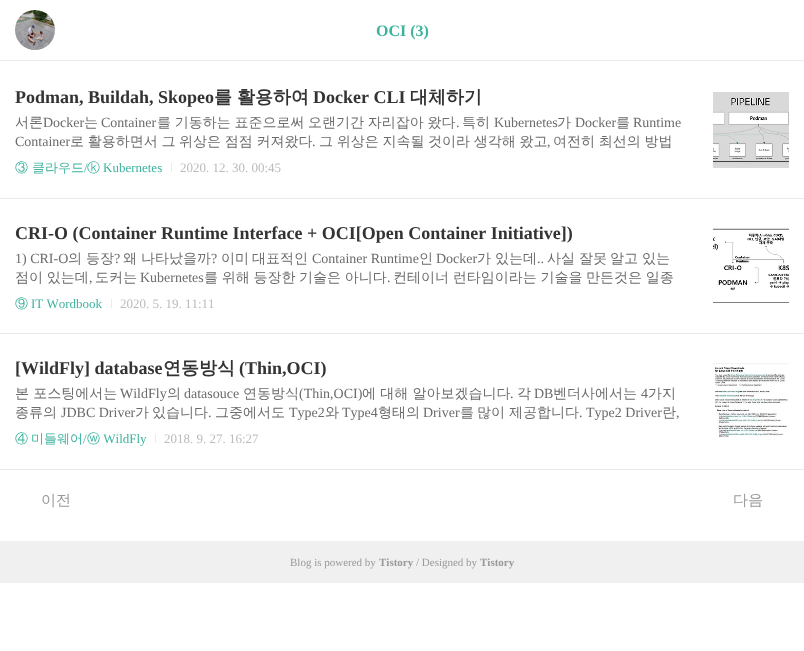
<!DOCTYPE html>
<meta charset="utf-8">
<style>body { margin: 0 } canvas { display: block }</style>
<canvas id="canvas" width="804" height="651"></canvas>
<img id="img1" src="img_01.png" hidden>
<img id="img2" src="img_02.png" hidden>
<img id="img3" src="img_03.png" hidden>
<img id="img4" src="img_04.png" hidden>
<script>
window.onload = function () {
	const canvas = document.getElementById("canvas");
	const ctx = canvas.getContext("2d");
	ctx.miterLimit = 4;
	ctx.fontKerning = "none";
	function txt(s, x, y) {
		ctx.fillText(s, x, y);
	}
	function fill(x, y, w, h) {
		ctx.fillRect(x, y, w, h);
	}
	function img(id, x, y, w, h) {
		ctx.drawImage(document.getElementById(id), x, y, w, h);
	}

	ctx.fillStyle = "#FFFFFF";
	fill(0, 0, 804, 651);
	ctx.fillStyle = "#EBEBEB";
	fill(0, 60, 804, 1);
	img("img1", 15, 10, 40, 40);
	fill(0, 198, 804, 1);
	img("img2", 713, 92, 76, 76);
	fill(171, 163, 1, 9);
	fill(0, 333, 804, 1);
	img("img3", 713, 228, 76, 75);
	fill(111, 299, 1, 9);
	fill(0, 469, 804, 1);
	img("img4", 713, 363, 76, 74);
	fill(155, 434, 1, 9);
	ctx.fillStyle = "#F0F0F0";
	fill(0, 541, 804, 42);
	ctx.font = "bold 16px Liberation Serif";
	ctx.fillStyle = "#3DB39E";
	txt("OCI (3)", 376, 36);
	ctx.font = "bold 18px Liberation Serif";
	ctx.fillStyle = "#333333";
	txt("Podman, Buildah, Skopeo", 15, 103);
	ctx.font = "bold 18px WenQuanYi Zen Hei";
	txt("를", 214, 103);
	txt("활용하여", 237, 103);
	ctx.font = "bold 18px Liberation Serif";
	txt("Docker CLI", 313, 103);
	ctx.font = "bold 18px WenQuanYi Zen Hei";
	txt("대체하기", 410, 103);
	ctx.font = "500 14px WenQuanYi Zen Hei";
	ctx.fillStyle = "#6B6B6B";
	txt("서론", 15, 127);
	ctx.font = "14px Liberation Serif";
	txt("Docker", 43, 127);
	ctx.font = "500 14px WenQuanYi Zen Hei";
	txt("는", 84, 127);
	ctx.font = "14px Liberation Serif";
	txt("Container", 101, 127);
	ctx.wordSpacing = "-0.5px";
	ctx.font = "500 14px WenQuanYi Zen Hei";
	txt("를 기동하는 표준으로써 오랜기간 자리잡아 왔다", 157, 127);
	ctx.wordSpacing = "0px";
	ctx.font = "14px Liberation Serif";
	txt(".", 456, 127);
	ctx.font = "500 14px WenQuanYi Zen Hei";
	txt("특히", 462, 127);
	ctx.font = "14px Liberation Serif";
	txt("Kubernetes", 494, 127);
	ctx.font = "500 14px WenQuanYi Zen Hei";
	txt("가", 557, 127);
	ctx.font = "14px Liberation Serif";
	txt("Docker", 575, 127);
	ctx.font = "500 14px WenQuanYi Zen Hei";
	txt("를", 616, 127);
	ctx.font = "14px Liberation Serif";
	txt("Runtime", 633, 127);
	txt("Container", 15, 146);
	ctx.wordSpacing = "-0.5px";
	ctx.font = "500 14px WenQuanYi Zen Hei";
	txt("로 활용하면서 그 위상은 점점 커져왔다", 70, 146);
	ctx.wordSpacing = "0px";
	ctx.font = "14px Liberation Serif";
	txt(".", 312, 146);
	ctx.wordSpacing = "-0.5px";
	ctx.font = "500 14px WenQuanYi Zen Hei";
	txt("그 위상은 지속될 것이라 생각해 왔고", 319, 146);
	ctx.wordSpacing = "0px";
	ctx.font = "14px Liberation Serif";
	txt(",", 547, 146);
	ctx.wordSpacing = "-0.5px";
	ctx.font = "500 14px WenQuanYi Zen Hei";
	txt("여전히 최선의 방법", 553, 146);
	ctx.wordSpacing = "0px";
	ctx.font = "500 13px WenQuanYi Zen Hei";
	ctx.fillStyle = "#3DB39E";
	txt("③ 클라우드", 15, 172);
	ctx.font = "13px Liberation Serif";
	txt("/", 84, 172);
	ctx.font = "500 13px WenQuanYi Zen Hei";
	txt("ⓚ", 87, 172);
	ctx.font = "13px Liberation Serif";
	txt("Kubernetes", 103, 172);
	ctx.fillStyle = "#BBBBBB";
	txt("2020. 12. 30. 00:45", 180, 172);
	ctx.font = "bold 18px Liberation Serif";
	ctx.fillStyle = "#333333";
	txt("CRI-O (Container Runtime Interface + OCI[Open Container Initiative])", 15, 239);
	ctx.font = "14px Liberation Serif";
	ctx.fillStyle = "#6B6B6B";
	txt("1) CRI-O", 15, 263);
	ctx.font = "500 14px WenQuanYi Zen Hei";
	txt("의", 68, 263);
	txt("등장", 86, 263);
	ctx.font = "14px Liberation Serif";
	txt("?", 114, 263);
	ctx.font = "500 14px WenQuanYi Zen Hei";
	txt("왜", 123, 263);
	txt("나타났을까", 141, 263);
	ctx.font = "14px Liberation Serif";
	txt("?", 211, 263);
	ctx.font = "500 14px WenQuanYi Zen Hei";
	txt("이미", 221, 263);
	txt("대표적인", 252, 263);
	ctx.font = "14px Liberation Serif";
	txt("Container Runtime", 312, 263);
	ctx.font = "500 14px WenQuanYi Zen Hei";
	txt("인", 419, 263);
	ctx.font = "14px Liberation Serif";
	txt("Docker", 436, 263);
	ctx.font = "500 14px WenQuanYi Zen Hei";
	txt("가", 477, 263);
	txt("있는데", 495, 263);
	ctx.font = "14px Liberation Serif";
	txt("..", 537, 263);
	ctx.font = "500 14px WenQuanYi Zen Hei";
	txt("사실", 547, 263);
	txt("잘못", 579, 263);
	txt("알고", 610, 263);
	txt("있는", 642, 263);
	ctx.wordSpacing = "-0.5px";
	txt("점이 있는데", 15, 282);
	ctx.wordSpacing = "0px";
	ctx.font = "14px Liberation Serif";
	txt(",", 89, 282);
	ctx.font = "500 14px WenQuanYi Zen Hei";
	txt("도커는", 95, 282);
	ctx.font = "14px Liberation Serif";
	txt("Kubernetes", 140, 282);
	ctx.wordSpacing = "-0.5px";
	ctx.font = "500 14px WenQuanYi Zen Hei";
	txt("를 위해 등장한 기술은 아니다", 204, 282);
	ctx.wordSpacing = "0px";
	ctx.font = "14px Liberation Serif";
	txt(".", 387, 282);
	ctx.wordSpacing = "-0.5px";
	ctx.font = "500 14px WenQuanYi Zen Hei";
	txt("컨테이너 런타임이라는 기술을 만든것은 일종", 393, 282);
	ctx.wordSpacing = "0px";
	ctx.font = "500 13px WenQuanYi Zen Hei";
	ctx.fillStyle = "#3DB39E";
	txt("⑨", 15, 308);
	ctx.font = "13px Liberation Serif";
	txt("IT Wordbook", 31, 308);
	ctx.fillStyle = "#BBBBBB";
	txt("2020. 5. 19. 11:11", 120, 308);
	ctx.font = "bold 18px Liberation Serif";
	ctx.fillStyle = "#333333";
	txt("[WildFly] database", 15, 374);
	ctx.font = "bold 18px WenQuanYi Zen Hei";
	txt("연동방식", 163, 374);
	ctx.font = "bold 18px Liberation Serif";
	txt("(Thin,OCI)", 239, 374);
	ctx.font = "500 14px WenQuanYi Zen Hei";
	ctx.fillStyle = "#6B6B6B";
	txt("본 포스팅에서는", 15, 398);
	ctx.font = "14px Liberation Serif";
	txt("WildFly", 120, 398);
	ctx.font = "500 14px WenQuanYi Zen Hei";
	txt("의", 167, 398);
	ctx.font = "14px Liberation Serif";
	txt("datasouce", 184, 398);
	ctx.font = "500 14px WenQuanYi Zen Hei";
	txt("연동방식", 243, 398);
	ctx.font = "14px Liberation Serif";
	txt("(Thin,OCI)", 299, 398);
	ctx.font = "500 14px WenQuanYi Zen Hei";
	txt("에 대해 알아보겠습니다", 362, 398);
	ctx.font = "14px Liberation Serif";
	txt(".", 510, 398);
	ctx.font = "500 14px WenQuanYi Zen Hei";
	txt("각", 517, 398);
	ctx.font = "14px Liberation Serif";
	txt("DB", 534, 398);
	ctx.font = "500 14px WenQuanYi Zen Hei";
	txt("벤더사에서는", 553, 398);
	ctx.font = "14px Liberation Serif";
	txt("4", 641, 398);
	ctx.font = "500 14px WenQuanYi Zen Hei";
	txt("가지", 648, 398);
	txt("종류의", 15, 417);
	ctx.font = "14px Liberation Serif";
	txt("JDBC Driver", 61, 417);
	ctx.font = "500 14px WenQuanYi Zen Hei";
	txt("가", 135, 417);
	txt("있습니다", 152, 417);
	ctx.font = "14px Liberation Serif";
	txt(".", 208, 417);
	ctx.font = "500 14px WenQuanYi Zen Hei";
	txt("그중에서도", 215, 417);
	ctx.font = "14px Liberation Serif";
	txt("Type2", 289, 417);
	ctx.font = "500 14px WenQuanYi Zen Hei";
	txt("와", 325, 417);
	ctx.font = "14px Liberation Serif";
	txt("Type4", 342, 417);
	ctx.font = "500 14px WenQuanYi Zen Hei";
	txt("형태의", 378, 417);
	ctx.font = "14px Liberation Serif";
	txt("Driver", 423, 417);
	ctx.font = "500 14px WenQuanYi Zen Hei";
	txt("를", 460, 417);
	txt("많이", 477, 417);
	txt("제공합니다", 509, 417);
	ctx.font = "14px Liberation Serif";
	txt(". Type2 Driver", 579, 417);
	ctx.font = "500 14px WenQuanYi Zen Hei";
	txt("란", 662, 417);
	ctx.font = "14px Liberation Serif";
	txt(",", 676, 417);
	ctx.font = "500 13px WenQuanYi Zen Hei";
	ctx.fillStyle = "#3DB39E";
	txt("④", 15, 443);
	txt("미들웨어 ⓦ", 31, 443);
	ctx.font = "13px Liberation Serif";
	txt("/", 83, 443);
	txt(" WildFly", 100, 443);
	ctx.fillStyle = "#BBBBBB";
	txt("2018. 9. 27. 16:27", 164, 443);
	ctx.font = "500 15px WenQuanYi Zen Hei";
	ctx.fillStyle = "#999999";
	txt("이전", 41, 505);
	txt("다음", 733, 505);
	ctx.font = "11px Liberation Serif";
	txt("Blog is powered by", 290, 566);
	ctx.font = "bold 11px Liberation Serif";
	txt("Tistory", 379, 566);
	ctx.font = "11px Liberation Serif";
	txt("/ Designed by", 416, 566);
	ctx.font = "bold 11px Liberation Serif";
	txt("Tistory", 480, 566);
};
</script>
